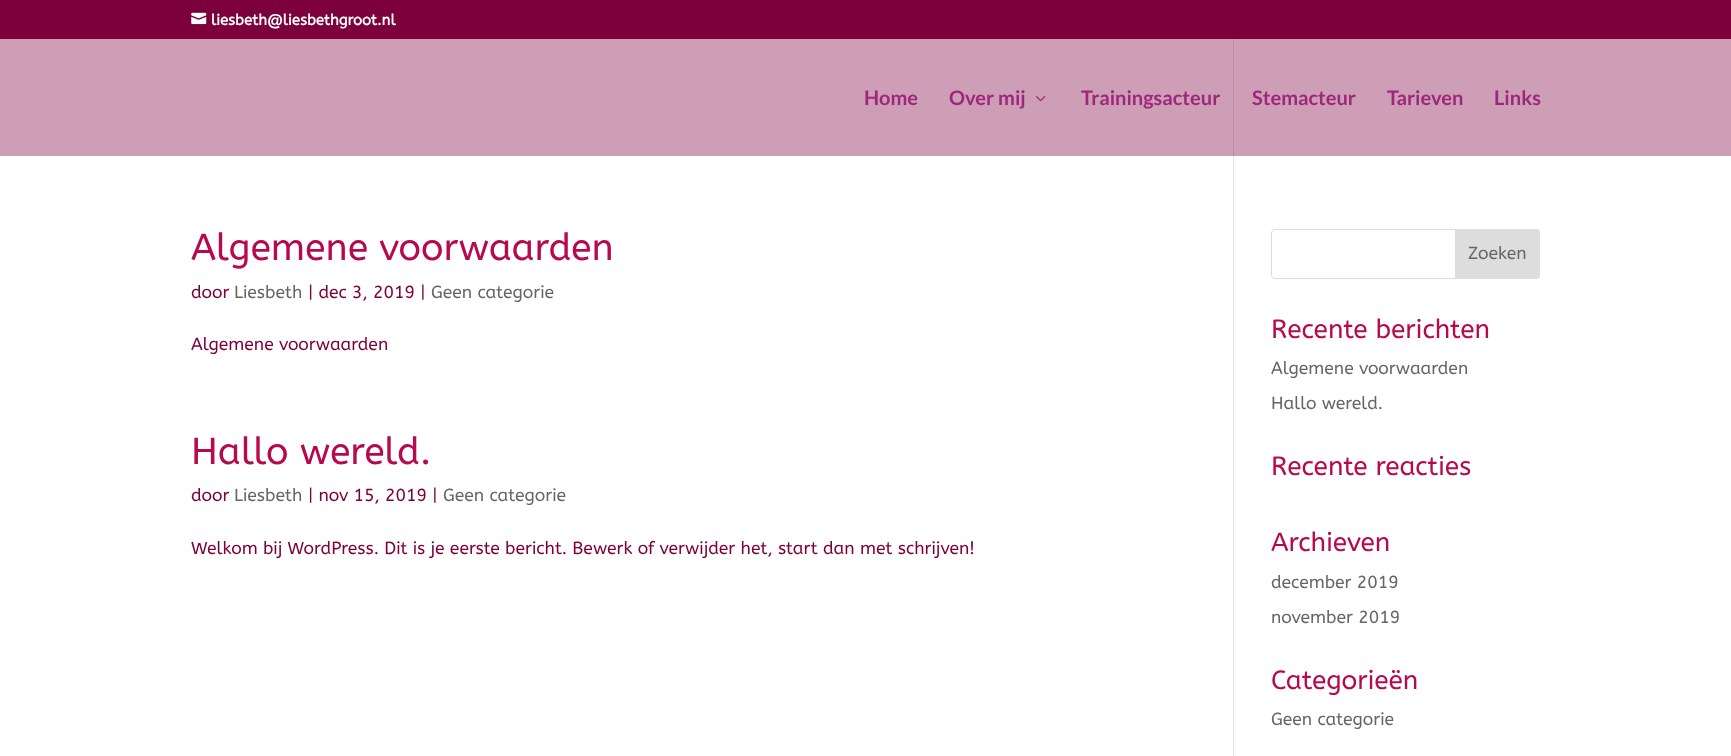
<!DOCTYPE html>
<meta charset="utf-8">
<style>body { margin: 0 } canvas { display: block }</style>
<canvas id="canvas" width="1731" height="756"></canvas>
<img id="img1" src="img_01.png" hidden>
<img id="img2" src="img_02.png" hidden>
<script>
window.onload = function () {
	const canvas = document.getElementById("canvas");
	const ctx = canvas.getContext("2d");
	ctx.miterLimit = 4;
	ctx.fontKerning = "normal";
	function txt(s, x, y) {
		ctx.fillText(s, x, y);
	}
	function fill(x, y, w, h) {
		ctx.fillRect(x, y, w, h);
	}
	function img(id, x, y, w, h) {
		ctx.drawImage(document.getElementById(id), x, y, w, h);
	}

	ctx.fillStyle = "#FFFFFF";
	fill(0, 0, 1731, 756);
	ctx.fillStyle = "#CD9EB5";
	fill(0, 39, 1731, 117);
	ctx.fillStyle = "#7B003B";
	fill(0, 0, 1731, 39);
	img("img1", 191, 12, 16, 13);
	img("img2", 1036, 96, 10, 6);
	ctx.fillStyle = "#E2E2E2";
	fill(1233, 156, 1, 600);
	ctx.fillStyle = "#BB8CA3";
	fill(1233, 39, 1, 117);
	ctx.beginPath();
	ctx.roundRect(1271.5, 229.5, 268, 49, 3.5);
	ctx.strokeStyle = "#DDDDDD";
	ctx.stroke();
	ctx.fillStyle = "#DDDDDD";
	ctx.beginPath();
	ctx.roundRect(1455.5, 229.5, 84, 49, [0, 3.5, 3.5, 0]);
	ctx.fill();
	ctx.stroke();
	ctx.font = "bold 15px ABeeZee";
	ctx.fillStyle = "#FFFFFF";
	txt("liesbeth@liesbethgroot.nl", 211, 25);
	ctx.font = "bold 20px Lato";
	ctx.fillStyle = "#9E277C";
	txt("Home", 864, 105);
	txt("Over mij", 949, 105);
	txt("Trainingsacteur", 1081, 105);
	txt("Stemacteur", 1252, 105);
	txt("Tarieven", 1387, 105);
	txt("Links", 1494, 105);
	ctx.font = "37.5px ABeeZee";
	ctx.fillStyle = "#B70A4E";
	txt("Algemene voorwaarden", 191, 260);
	ctx.font = "17.5px ABeeZee";
	ctx.fillStyle = "#7B003B";
	txt("door", 191, 298);
	ctx.fillStyle = "#666666";
	txt("Liesbeth", 234, 298);
	ctx.fillStyle = "#7B003B";
	txt("| dec 3, 2019 |", 308, 298);
	ctx.fillStyle = "#666666";
	txt("Geen categorie", 431, 298);
	ctx.fillStyle = "#7B003B";
	txt("Algemene voorwaarden", 191, 350);
	ctx.font = "37.5px ABeeZee";
	ctx.fillStyle = "#B70A4E";
	txt("Hallo wereld.", 191, 464);
	ctx.font = "17.5px ABeeZee";
	ctx.fillStyle = "#7B003B";
	txt("door", 191, 501);
	ctx.fillStyle = "#666666";
	txt("Liesbeth", 234, 501);
	ctx.fillStyle = "#7B003B";
	txt("| nov 15, 2019 |", 308, 501);
	ctx.fillStyle = "#666666";
	txt("Geen categorie", 443, 501);
	ctx.fillStyle = "#7B003B";
	txt("Welkom bij WordPress. Dit is je eerste bericht. Bewerk of verwijder het, start dan met schrijven!", 191, 554);
	ctx.fillStyle = "#666666";
	txt("Zoeken", 1468, 259);
	ctx.font = "26.25px ABeeZee";
	ctx.fillStyle = "#B70A4E";
	txt("Recente berichten", 1271, 338);
	ctx.font = "17.5px ABeeZee";
	ctx.fillStyle = "#666666";
	txt("Algemene voorwaarden", 1271, 374);
	txt("Hallo wereld.", 1271, 409);
	ctx.font = "26.25px ABeeZee";
	ctx.fillStyle = "#B70A4E";
	txt("Recente reacties", 1271, 475);
	txt("Archieven", 1271, 551);
	ctx.font = "17.5px ABeeZee";
	ctx.fillStyle = "#666666";
	txt("december 2019", 1271, 588);
	txt("november 2019", 1271, 623);
	ctx.font = "26.25px ABeeZee";
	ctx.fillStyle = "#B70A4E";
	txt("Categorieën", 1271, 689);
	ctx.font = "17.5px ABeeZee";
	ctx.fillStyle = "#666666";
	txt("Geen categorie", 1271, 725);
};
</script>
